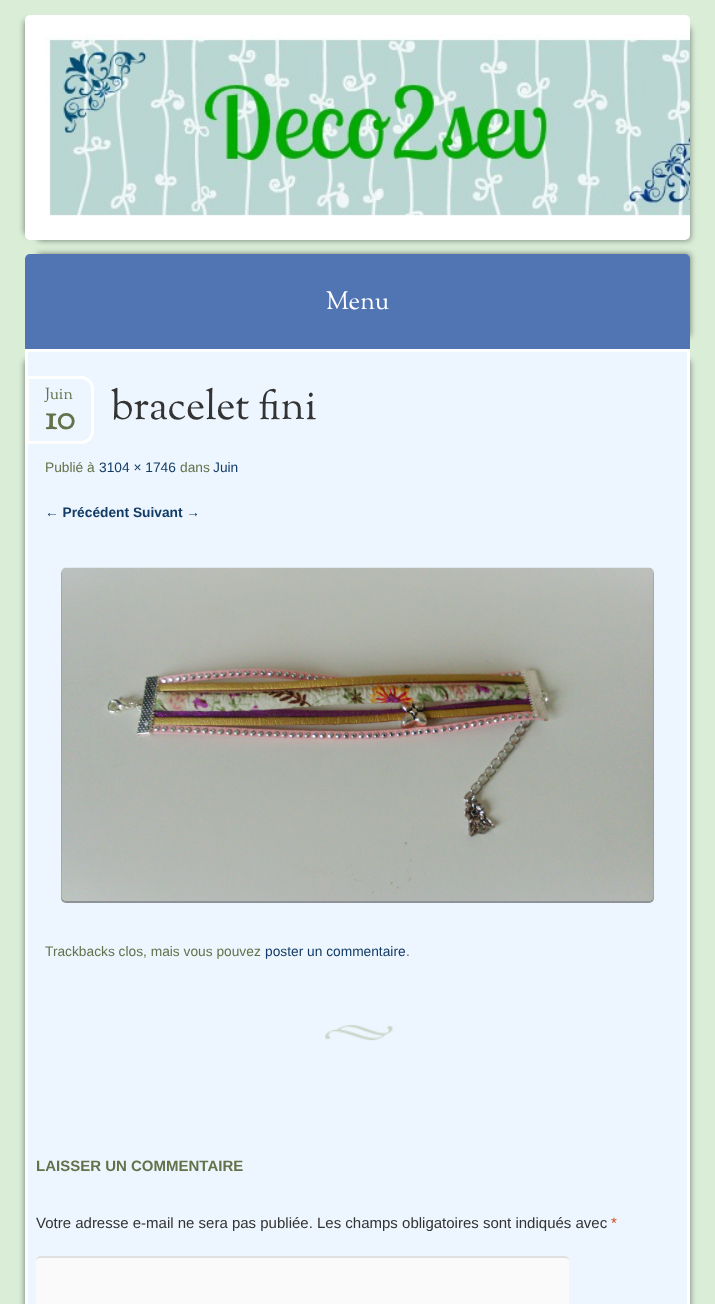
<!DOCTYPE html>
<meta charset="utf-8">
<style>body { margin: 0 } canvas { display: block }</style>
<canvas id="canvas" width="715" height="1304"></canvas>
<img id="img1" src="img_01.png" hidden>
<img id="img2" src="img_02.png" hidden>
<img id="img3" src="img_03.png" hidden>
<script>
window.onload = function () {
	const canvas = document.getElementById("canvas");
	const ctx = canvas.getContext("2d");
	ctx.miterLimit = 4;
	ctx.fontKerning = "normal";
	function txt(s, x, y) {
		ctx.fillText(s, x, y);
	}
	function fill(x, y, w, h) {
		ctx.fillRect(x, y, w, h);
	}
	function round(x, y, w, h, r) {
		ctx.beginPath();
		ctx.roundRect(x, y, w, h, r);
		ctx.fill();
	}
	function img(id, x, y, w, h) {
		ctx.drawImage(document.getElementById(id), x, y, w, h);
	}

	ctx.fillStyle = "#D9EDD7";
	fill(0, 0, 715, 1304);
	ctx.fillStyle = "rgba(0, 0, 0, 0.5)";
	ctx.filter = "blur(3px)";
	ctx.beginPath();
	ctx.rect(25, 21, 653, 213);
	ctx.fill();
	ctx.filter = "none";
	ctx.filter = "blur(3px)";
	ctx.beginPath();
	ctx.rect(38, 28, 652, 212);
	ctx.fill();
	ctx.filter = "none";
	img("img1", 25, 15, 665, 225);
	ctx.filter = "blur(3px)";
	ctx.beginPath();
	ctx.rect(38, 254, 652, 82);
	ctx.fill();
	ctx.filter = "none";
	ctx.fillStyle = "#5175B3";
	ctx.beginPath();
	ctx.roundRect(25, 254, 665, 95, [5, 5, 0, 0]);
	ctx.fill();
	ctx.fillStyle = "rgba(0, 0, 0, 0.5)";
	ctx.filter = "blur(3px)";
	ctx.beginPath();
	ctx.rect(25, 361, 653, 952);
	ctx.fill();
	ctx.filter = "none";
	ctx.filter = "blur(3px)";
	ctx.beginPath();
	ctx.rect(38, 361, 652, 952);
	ctx.fill();
	ctx.filter = "none";
	ctx.fillStyle = "#EDF6FE";
	ctx.beginPath();
	ctx.rect(26.5, 350.5, 662, 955);
	ctx.fill();
	ctx.strokeStyle = "#FFFFFF";
	ctx.lineWidth = 3;
	ctx.stroke();
	img("img2", 325, 1025, 68, 16);
	ctx.beginPath();
	ctx.roundRect(27.5, 377.5, 65, 65, [0, 11.5, 11.5, 0]);
	ctx.fill();
	ctx.stroke();
	ctx.fillStyle = "rgba(0, 0, 0, 0.4)";
	ctx.filter = "blur(0.5px)";
	ctx.beginPath();
	ctx.roundRect(61, 569, 593, 334, 5);
	ctx.fill();
	ctx.filter = "none";
	img("img3", 61, 567, 593, 334);
	ctx.fillStyle = "#FAFAFA";
	round(36, 1256, 533, 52, 4);
	ctx.fillStyle = "rgba(0, 0, 0, 0.1)";
	ctx.beginPath();
	ctx.moveTo(40, 1258);
	ctx.lineTo(565, 1258);
	ctx.bezierCurveTo(567, 1258, 569, 1259, 569, 1261);
	ctx.lineTo(569, 1260);
	ctx.bezierCurveTo(569, 1258, 567, 1256, 565, 1256);
	ctx.lineTo(40, 1256);
	ctx.bezierCurveTo(38, 1256, 36, 1258, 36, 1260);
	ctx.lineTo(36, 1261);
	ctx.bezierCurveTo(36, 1259, 38, 1258, 40, 1258);
	ctx.closePath();
	ctx.fill();
	ctx.font = "25px Sorts Mill Goudy";
	ctx.fillStyle = "#FFFFFF";
	txt("Menu", 326, 309);
	ctx.font = "16px Sorts Mill Goudy";
	ctx.fillStyle = "#63724B";
	txt("Juin", 45, 399);
	ctx.font = "bold 35px Sorts Mill Goudy";
	txt("10", 45, 429);
	ctx.font = "41.25px Sorts Mill Goudy";
	ctx.fillStyle = "#333333";
	txt("bracelet fini", 111, 419);
	ctx.font = "13.75px Liberation Sans";
	ctx.fillStyle = "#63724B";
	txt("Publié à", 45, 472);
	ctx.fillStyle = "#123B66";
	txt("3104 × 1746", 99, 472);
	ctx.fillStyle = "#63724B";
	txt("dans", 180, 472);
	ctx.fillStyle = "#123B66";
	txt("Juin", 213, 472);
	ctx.font = "bold 13.75px Liberation Sans";
	txt("← Précédent Suivant →", 45, 517);
	ctx.font = "13.75px Liberation Sans";
	ctx.fillStyle = "#63724B";
	txt("Trackbacks clos, mais vous pouvez", 45, 956);
	ctx.fillStyle = "#123B66";
	txt("poster un commentaire", 265, 956);
	ctx.fillStyle = "#63724B";
	txt(".", 406, 956);
	ctx.font = "bold 15px Liberation Sans";
	txt("LAISSER UN COMMENTAIRE", 36, 1171);
	ctx.font = "15px Liberation Sans";
	ctx.fillStyle = "#333333";
	txt("Votre adresse e-mail ne sera pas publiée. Les champs obligatoires sont indiqués avec", 36, 1228);
	ctx.fillStyle = "#CC4D22";
	txt("*", 611, 1228);
};
</script>
